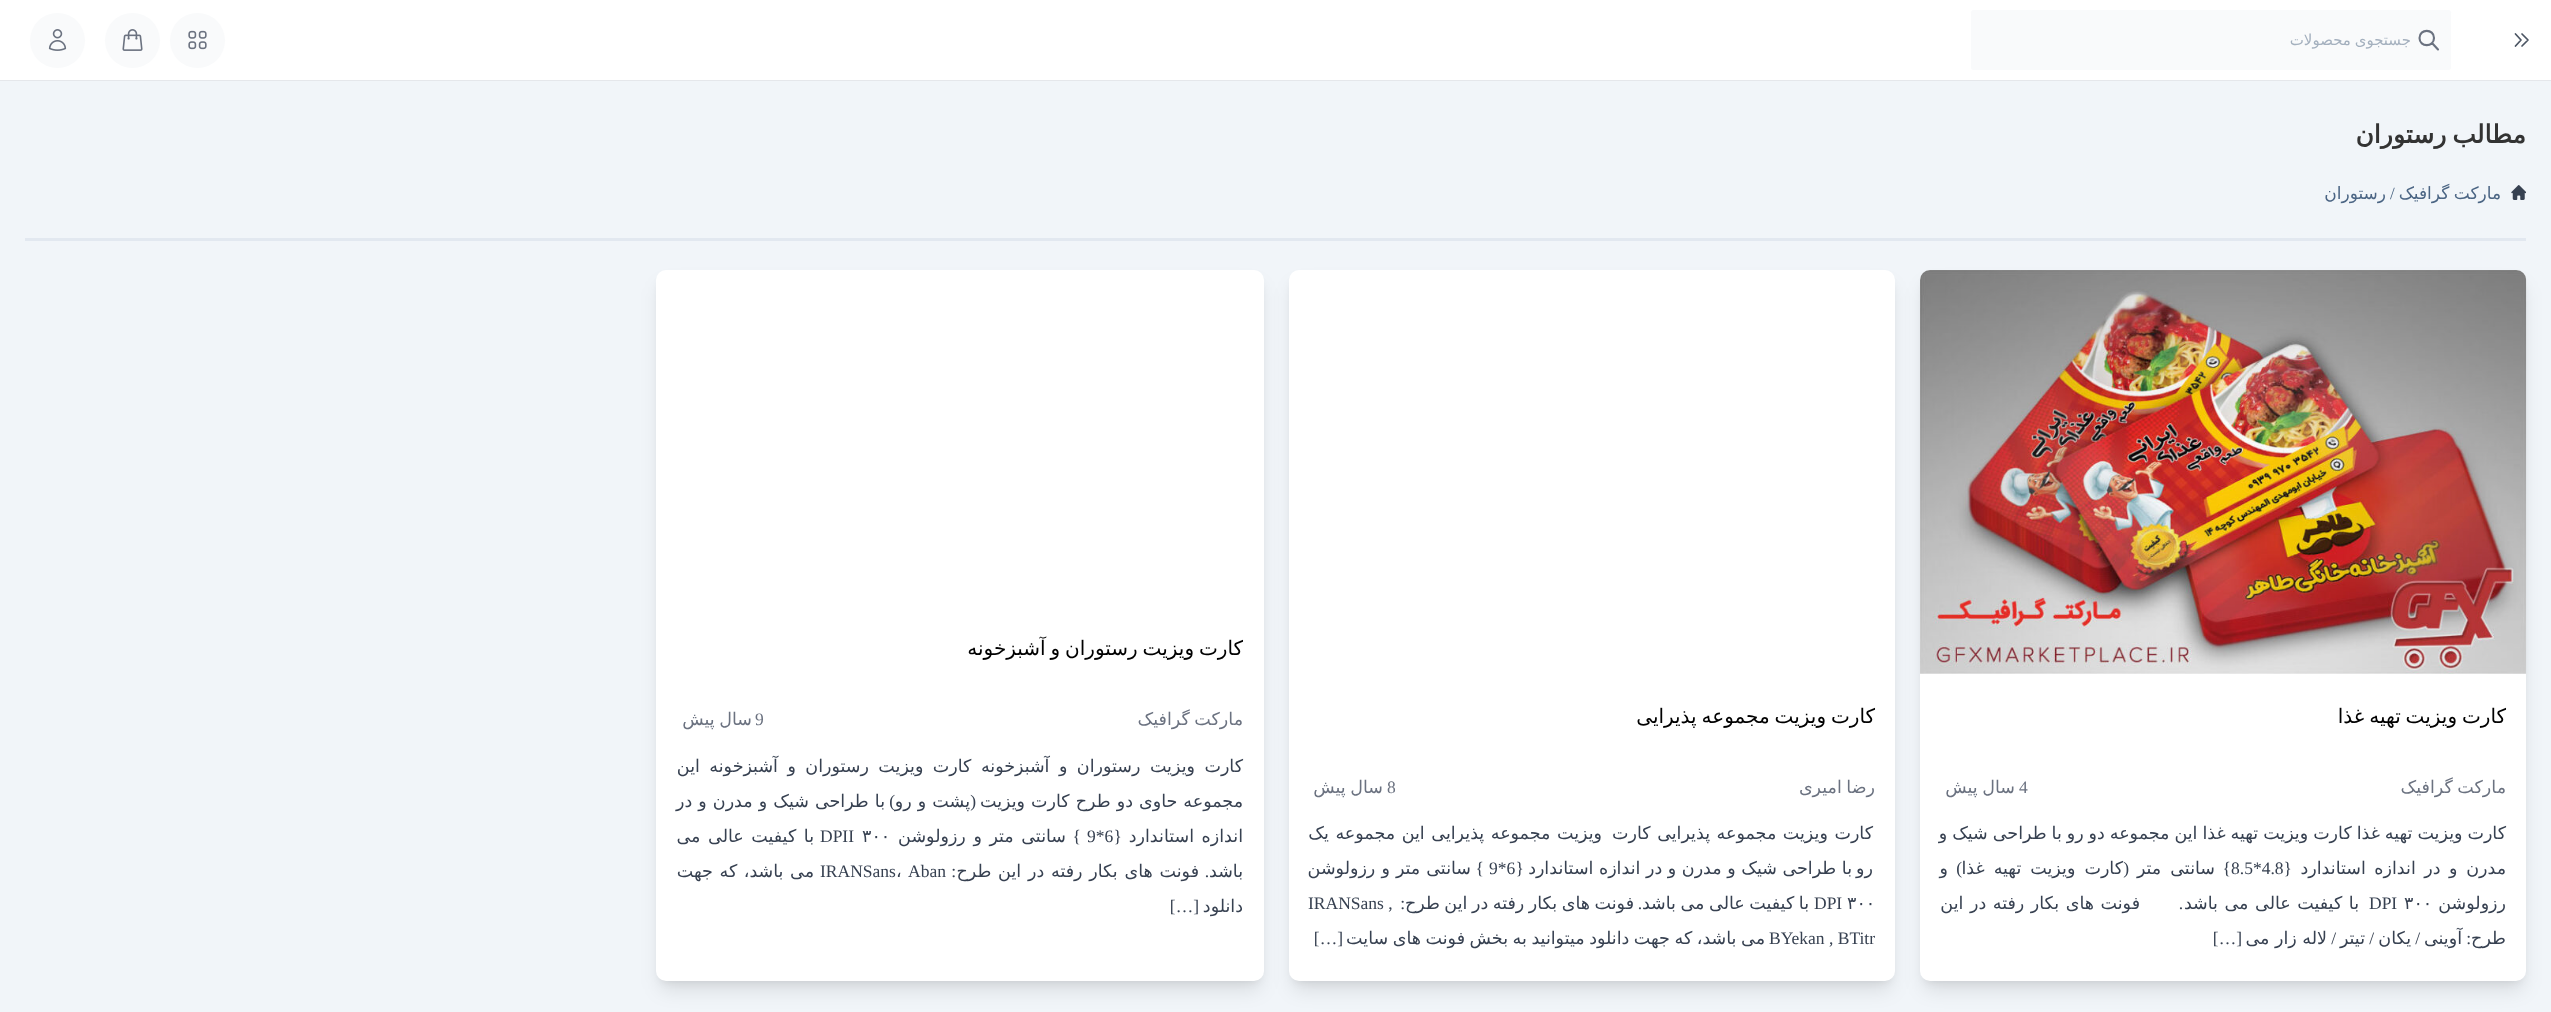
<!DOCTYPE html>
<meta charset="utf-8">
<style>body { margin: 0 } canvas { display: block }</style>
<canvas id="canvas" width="2551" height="1012"></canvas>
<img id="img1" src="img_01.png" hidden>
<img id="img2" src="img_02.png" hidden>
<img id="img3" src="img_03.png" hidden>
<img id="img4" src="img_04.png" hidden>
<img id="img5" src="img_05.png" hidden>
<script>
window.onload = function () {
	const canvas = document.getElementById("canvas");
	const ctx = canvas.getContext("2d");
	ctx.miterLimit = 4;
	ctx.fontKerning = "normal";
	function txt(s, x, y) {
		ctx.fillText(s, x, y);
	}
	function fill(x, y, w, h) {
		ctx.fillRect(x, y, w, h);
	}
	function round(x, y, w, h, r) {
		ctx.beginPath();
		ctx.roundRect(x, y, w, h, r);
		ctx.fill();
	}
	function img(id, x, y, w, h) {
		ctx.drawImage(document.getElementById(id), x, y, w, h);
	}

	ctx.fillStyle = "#F1F5F9";
	fill(0, 0, 2551, 1012);
	ctx.fillStyle = "#FFFFFF";
	fill(0, 0, 2551, 80);
	ctx.fillStyle = "#E5E7EB";
	fill(0, 80, 2551, 1);
	ctx.beginPath();
	ctx.moveTo(2522, 34);
	ctx.lineTo(2528, 40);
	ctx.lineTo(2522, 46);
	ctx.moveTo(2515.5, 34);
	ctx.lineTo(2521, 40);
	ctx.lineTo(2515.5, 46);
	ctx.strokeStyle = "#4B5563";
	ctx.lineWidth = 1.7;
	ctx.lineCap = "round";
	ctx.lineJoin = "round";
	ctx.stroke();
	ctx.fillStyle = "#F9FAFB";
	round(1971, 10, 480, 60, 2.5);
	ctx.beginPath();
	ctx.moveTo(2438, 49.5);
	ctx.lineTo(2432, 43);
	ctx.moveTo(2434, 38);
	ctx.bezierCurveTo(2434, 47.5, 2419.5, 47.5, 2419.5, 38);
	ctx.bezierCurveTo(2419.5, 28.5, 2434, 28.5, 2434, 38);
	ctx.closePath();
	ctx.strokeStyle = "#6B7280";
	ctx.lineWidth = 2.1;
	ctx.stroke();
	ctx.beginPath();
	ctx.arc(197.5, 40.5, 27.5, 0, Math.PI * 2);
	ctx.fill();
	img("img1", 188, 30, 19, 20);
	ctx.beginPath();
	ctx.arc(132.5, 40.5, 27.5, 0, Math.PI * 2);
	ctx.fill();
	img("img2", 122, 29, 21, 22);
	ctx.beginPath();
	ctx.arc(57.5, 40.5, 27.5, 0, Math.PI * 2);
	ctx.fill();
	img("img3", 48, 29, 19, 22);
	ctx.fillStyle = "#E2E8F0";
	fill(25, 238, 2501, 3);
	img("img4", 2511, 185, 15, 15);
	ctx.fillStyle = "rgba(0, 0, 0, 0.1)";
	ctx.filter = "blur(4px)";
	ctx.beginPath();
	ctx.roundRect(1925, 280, 596, 701, 5);
	ctx.fill();
	ctx.filter = "none";
	ctx.filter = "blur(9.5px)";
	ctx.beginPath();
	ctx.roundRect(1924, 286, 599, 704, 6);
	ctx.fill();
	ctx.filter = "none";
	ctx.fillStyle = "#FFFFFF";
	round(1920, 270, 606, 711, 10);
	img("img5", 1920, 270, 607, 404);
	ctx.fillStyle = "rgba(0, 0, 0, 0.1)";
	ctx.filter = "blur(4px)";
	ctx.beginPath();
	ctx.roundRect(1294, 280, 596, 701, 5);
	ctx.fill();
	ctx.filter = "none";
	ctx.filter = "blur(9.5px)";
	ctx.beginPath();
	ctx.roundRect(1293, 286, 598, 704, 6);
	ctx.fill();
	ctx.filter = "none";
	ctx.fillStyle = "#FFFFFF";
	round(1289, 270, 606, 711, 10);
	ctx.fillStyle = "rgba(0, 0, 0, 0.1)";
	ctx.filter = "blur(4px)";
	ctx.beginPath();
	ctx.roundRect(661, 280, 598, 701, 5);
	ctx.fill();
	ctx.filter = "none";
	ctx.filter = "blur(9.5px)";
	ctx.beginPath();
	ctx.roundRect(660, 286, 600, 704, 6);
	ctx.fill();
	ctx.filter = "none";
	ctx.fillStyle = "#FFFFFF";
	round(656, 270, 608, 711, 10);
	ctx.wordSpacing = "-1px";
	ctx.direction = "rtl";
	ctx.font = "15px DejaVu Sans";
	ctx.fillStyle = "#A4B0BE";
	txt("جستجوی محصولات", 2411, 45);
	ctx.wordSpacing = "-2px";
	ctx.font = "bold 25px DejaVu Sans";
	ctx.fillStyle = "#333333";
	txt("مطالب رستوران", 2526, 143);
	ctx.wordSpacing = "-1px";
	ctx.font = "17px DejaVu Sans";
	ctx.fillStyle = "#4B6584";
	txt("مارکت گرافیک", 2501, 199);
	ctx.wordSpacing = "0px";
	ctx.direction = "ltr";
	ctx.font = "17px Liberation Serif";
	txt("/", 2390, 199);
	ctx.direction = "rtl";
	ctx.font = "17px DejaVu Sans";
	txt("رستوران", 2386, 199);
	ctx.wordSpacing = "-1.5px";
	ctx.font = "20px DejaVu Sans";
	ctx.fillStyle = "#000000";
	txt("کارت ویزیت تهیه غذا", 2506, 723);
	ctx.wordSpacing = "-1px";
	ctx.font = "17.5px DejaVu Sans";
	ctx.fillStyle = "#6B7280";
	txt("مارکت گرافیک", 2506, 793);
	ctx.wordSpacing = "0px";
	ctx.direction = "ltr";
	ctx.font = "17.5px Liberation Serif";
	txt("4", 2019, 793);
	ctx.wordSpacing = "-1px";
	ctx.direction = "rtl";
	ctx.font = "17.5px DejaVu Sans";
	txt("سال پیش", 2015, 793);
	ctx.wordSpacing = "-0.6px";
	ctx.fillStyle = "#374151";
	txt("کارت ویزیت تهیه غذا کارت ویزیت تهیه غذا این مجموعه دو رو با طراحی شیک و", 2506, 839);
	ctx.wordSpacing = "3px";
	txt("مدرن و در اندازه استاندارد", 2506, 874);
	ctx.wordSpacing = "0px";
	ctx.font = "17.5px Liberation Serif";
	txt("{", 2292, 874);
	ctx.direction = "ltr";
	txt("8.5*4.8", 2231, 874);
	ctx.direction = "rtl";
	txt("}", 2231, 874);
	ctx.wordSpacing = "3.5px";
	ctx.font = "17.5px DejaVu Sans";
	txt("سانتی متر", 2215, 874);
	ctx.wordSpacing = "0px";
	ctx.font = "17.5px Liberation Serif";
	txt("(", 2129, 874);
	ctx.wordSpacing = "3.5px";
	ctx.font = "17.5px DejaVu Sans";
	txt("کارت ویزیت تهیه غذا", 2123, 874);
	ctx.wordSpacing = "0px";
	ctx.font = "17.5px Liberation Serif";
	txt(")", 1962, 874);
	ctx.font = "17.5px DejaVu Sans";
	txt("و", 1948, 874);
	txt("رزولوشن", 2506, 909);
	ctx.direction = "ltr";
	txt("۳۰۰", 2404, 909);
	ctx.font = "17.5px Liberation Serif";
	txt("DPI", 2369, 909);
	ctx.wordSpacing = "1px";
	ctx.direction = "rtl";
	ctx.font = "17.5px DejaVu Sans";
	txt("با کیفیت عالی می باشد", 2359, 909);
	ctx.wordSpacing = "0px";
	ctx.font = "17.5px Liberation Serif";
	txt(".", 2183, 909);
	ctx.wordSpacing = "1px";
	ctx.font = "17.5px DejaVu Sans";
	txt("فونت های بکار رفته در این", 2140, 909);
	ctx.wordSpacing = "0px";
	txt("طرح", 2506, 944);
	ctx.font = "17.5px Liberation Serif";
	txt(":", 2471, 944);
	ctx.font = "17.5px DejaVu Sans";
	txt("آوینی", 2462, 944);
	ctx.font = "17.5px Liberation Serif";
	txt("/", 2420, 944);
	ctx.font = "17.5px DejaVu Sans";
	txt("یکان", 2411, 944);
	ctx.font = "17.5px Liberation Serif";
	txt("/", 2374, 944);
	ctx.font = "17.5px DejaVu Sans";
	txt("تیتر", 2365, 944);
	ctx.font = "17.5px Liberation Serif";
	txt("/", 2336, 944);
	ctx.font = "17.5px DejaVu Sans";
	txt("لاله زار می", 2327, 944);
	ctx.font = "17.5px Liberation Serif";
	txt("[…]", 2242, 944);
	ctx.wordSpacing = "-1.5px";
	ctx.font = "20px DejaVu Sans";
	ctx.fillStyle = "#000000";
	txt("کارت ویزیت مجموعه پذیرایی", 1875, 723);
	ctx.wordSpacing = "-1px";
	ctx.font = "17.5px DejaVu Sans";
	ctx.fillStyle = "#6B7280";
	txt("رضا امیری", 1875, 793);
	ctx.wordSpacing = "0px";
	ctx.direction = "ltr";
	ctx.font = "17.5px Liberation Serif";
	txt("8", 1387, 793);
	ctx.wordSpacing = "-1px";
	ctx.direction = "rtl";
	ctx.font = "17.5px DejaVu Sans";
	txt("سال پیش", 1383, 793);
	ctx.wordSpacing = "1px";
	ctx.fillStyle = "#374151";
	txt("کارت ویزیت مجموعه پذیرایی کارت", 1873, 839);
	txt("ویزیت مجموعه پذیرایی این مجموعه یک", 1602, 839);
	ctx.wordSpacing = "0px";
	txt("رو", 1873, 874);
	txt("با طراحی شیک و مدرن و در اندازه استاندارد", 1852, 874);
	ctx.font = "17.5px Liberation Serif";
	txt("{", 1524, 874);
	ctx.direction = "ltr";
	txt("9*6", 1489, 874);
	ctx.direction = "rtl";
	txt("}", 1484, 874);
	ctx.wordSpacing = "0.5px";
	ctx.font = "17.5px DejaVu Sans";
	txt("سانتی متر و رزولوشن", 1471, 874);
	ctx.wordSpacing = "0px";
	ctx.direction = "ltr";
	txt("۳۰۰", 1847, 909);
	ctx.font = "17.5px Liberation Serif";
	txt("DPI", 1814, 909);
	ctx.wordSpacing = "-1px";
	ctx.direction = "rtl";
	ctx.font = "17.5px DejaVu Sans";
	txt("با کیفیت عالی می باشد", 1809, 909);
	ctx.wordSpacing = "0px";
	ctx.font = "17.5px Liberation Serif";
	txt(".", 1642, 909);
	ctx.wordSpacing = "-1px";
	ctx.font = "17.5px DejaVu Sans";
	txt("فونت های بکار رفته در این طرح", 1634, 909);
	ctx.wordSpacing = "0px";
	ctx.font = "17.5px Liberation Serif";
	txt(":", 1405, 909);
	ctx.direction = "ltr";
	txt("IRANSans ,", 1308, 909);
	txt("BYekan , BTitr", 1769, 944);
	ctx.wordSpacing = "-1px";
	ctx.direction = "rtl";
	ctx.font = "17.5px DejaVu Sans";
	txt("می باشد، که جهت دانلود میتوانید به بخش فونت های سایت", 1765, 944);
	ctx.wordSpacing = "0px";
	ctx.font = "17.5px Liberation Serif";
	txt("[…]", 1343, 944);
	ctx.wordSpacing = "-1.5px";
	ctx.font = "20px DejaVu Sans";
	ctx.fillStyle = "#000000";
	txt("کارت ویزیت رستوران و آشبزخونه", 1243, 655);
	ctx.wordSpacing = "-1px";
	ctx.font = "17.5px DejaVu Sans";
	ctx.fillStyle = "#6B7280";
	txt("مارکت گرافیک", 1243, 725);
	ctx.wordSpacing = "0px";
	ctx.direction = "ltr";
	ctx.font = "17.5px Liberation Serif";
	txt("9", 755, 725);
	ctx.wordSpacing = "-1px";
	ctx.direction = "rtl";
	ctx.font = "17.5px DejaVu Sans";
	txt("سال پیش", 752, 725);
	ctx.wordSpacing = "3.9px";
	ctx.fillStyle = "#374151";
	txt("کارت ویزیت رستوران و آشبزخونه کارت ویزیت رستوران و آشبزخونه این", 1243, 772);
	ctx.wordSpacing = "0.5px";
	txt("مجموعه حاوی دو طرح کارت ویزیت", 1243, 807);
	ctx.wordSpacing = "0px";
	ctx.font = "17.5px Liberation Serif";
	txt("(", 976, 807);
	txt(")", 895, 807);
	ctx.wordSpacing = "0.5px";
	ctx.font = "17.5px DejaVu Sans";
	txt("پشت و رو", 970, 807);
	txt("با طراحی شیک و مدرن و در", 885, 807);
	ctx.wordSpacing = "2px";
	txt("اندازه استاندارد", 1243, 842);
	ctx.wordSpacing = "0px";
	ctx.font = "17.5px Liberation Serif";
	txt("{", 1122, 842);
	ctx.direction = "ltr";
	txt("9*6", 1087, 842);
	ctx.direction = "rtl";
	txt("}", 1081, 842);
	ctx.wordSpacing = "2px";
	ctx.font = "17.5px DejaVu Sans";
	txt("سانتی متر و رزولوشن", 1066, 842);
	ctx.wordSpacing = "0px";
	ctx.direction = "ltr";
	txt("۳۰۰", 862, 842);
	ctx.font = "17.5px Liberation Serif";
	txt("DPII", 820, 842);
	ctx.wordSpacing = "2px";
	ctx.direction = "rtl";
	ctx.font = "17.5px DejaVu Sans";
	txt("با کیفیت عالی می", 814, 842);
	ctx.wordSpacing = "0px";
	txt("باشد", 1243, 877);
	ctx.font = "17.5px Liberation Serif";
	txt(".", 1209, 877);
	ctx.wordSpacing = "1.25px";
	ctx.font = "17.5px DejaVu Sans";
	txt("فونت های بکار رفته در این طرح", 1199, 877);
	ctx.wordSpacing = "0px";
	ctx.font = "17.5px Liberation Serif";
	txt(":", 956, 877);
	ctx.direction = "ltr";
	txt("Aban", 908, 877);
	ctx.font = "17.5px DejaVu Sans";
	txt("،", 896, 877);
	ctx.font = "17.5px Liberation Serif";
	txt("IRANSans", 820, 877);
	ctx.wordSpacing = "1px";
	ctx.direction = "rtl";
	ctx.font = "17.5px DejaVu Sans";
	txt("می باشد، که جهت", 814, 877);
	ctx.wordSpacing = "0px";
	txt("دانلود", 1243, 912);
	ctx.font = "17.5px Liberation Serif";
	txt("[…]", 1199, 912);
};
</script>
